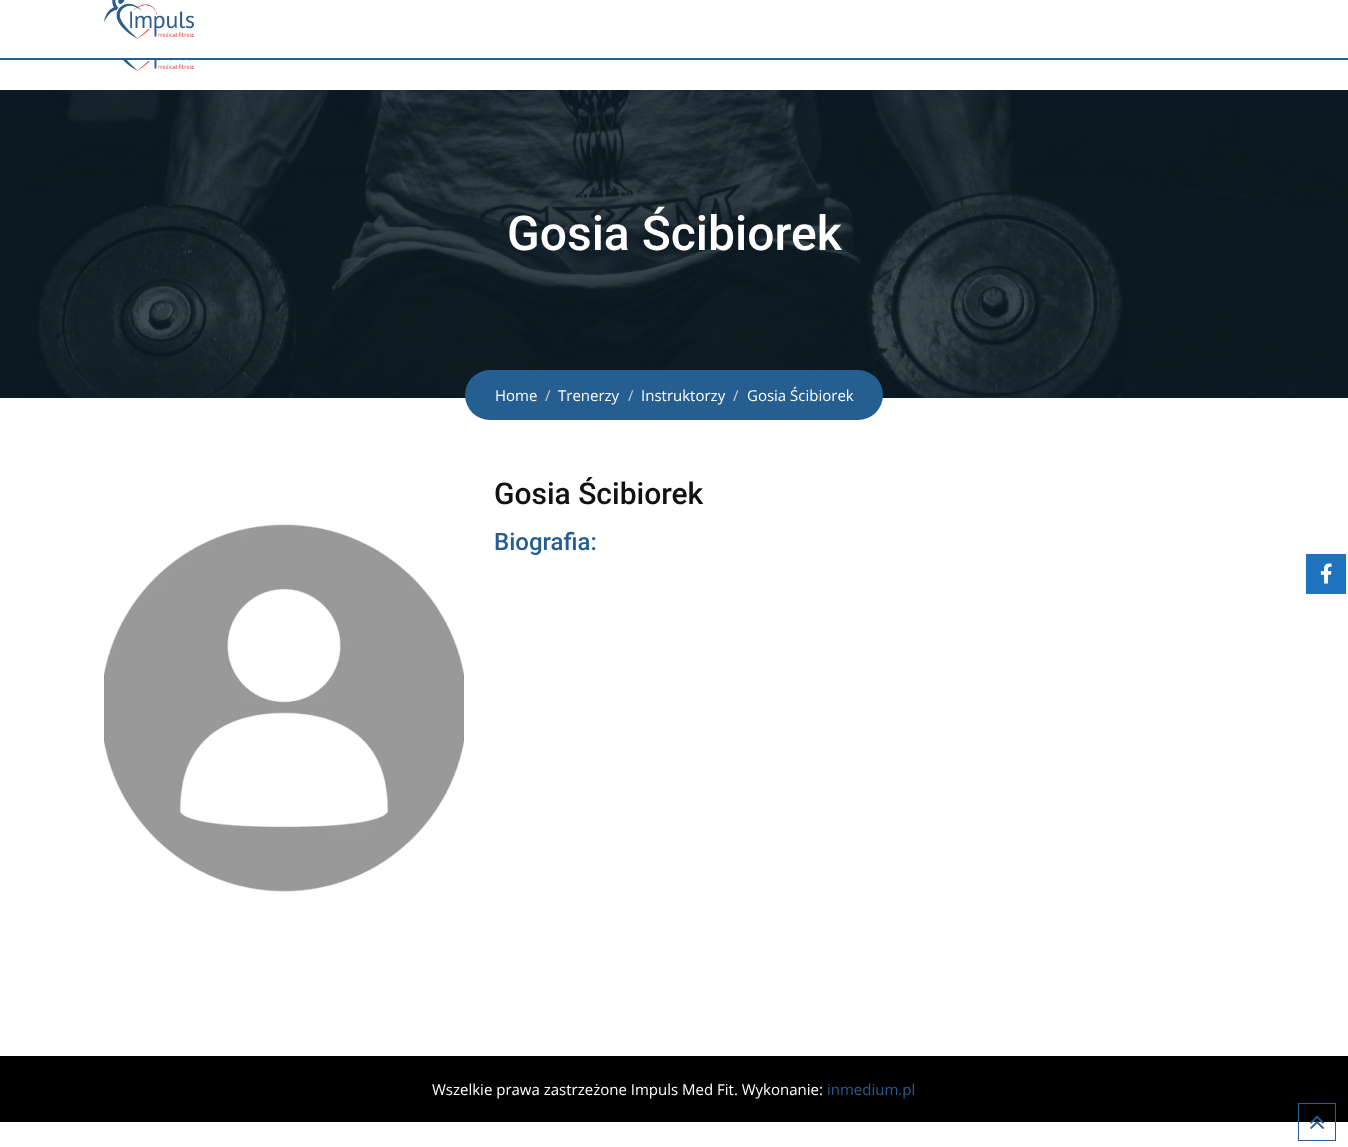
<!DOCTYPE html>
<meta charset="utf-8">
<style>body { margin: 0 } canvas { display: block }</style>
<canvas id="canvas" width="1348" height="1147"></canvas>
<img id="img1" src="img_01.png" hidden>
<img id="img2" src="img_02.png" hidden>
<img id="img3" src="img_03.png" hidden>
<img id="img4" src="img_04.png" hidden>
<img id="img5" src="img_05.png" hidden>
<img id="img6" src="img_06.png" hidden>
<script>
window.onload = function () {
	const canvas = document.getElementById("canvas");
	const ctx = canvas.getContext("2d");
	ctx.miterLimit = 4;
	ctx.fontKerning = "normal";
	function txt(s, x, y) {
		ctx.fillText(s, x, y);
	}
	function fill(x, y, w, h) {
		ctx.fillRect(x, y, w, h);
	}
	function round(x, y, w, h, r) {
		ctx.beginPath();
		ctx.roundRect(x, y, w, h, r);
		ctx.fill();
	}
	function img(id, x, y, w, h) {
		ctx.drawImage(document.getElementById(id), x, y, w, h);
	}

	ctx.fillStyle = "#FFFFFF";
	fill(0, 0, 1348, 1147);
	ctx.fillStyle = "#255E91";
	fill(0, 58, 1348, 2);
	img("img1", 104, 0, 90, 39);
	img("img2", 122, 60, 72, 11);
	img("img3", 0, 90, 1348, 308);
	round(465, 370, 418, 50, 25);
	img("img4", 104, 524, 360, 368);
	ctx.fillStyle = "#000000";
	fill(0, 1056, 1348, 66);
	ctx.fillStyle = "#1E73BE";
	fill(1306, 554, 40, 40);
	img("img5", 1320, 563, 12, 21);
	ctx.strokeStyle = "#255E91";
	ctx.strokeRect(1298.5, 1103.5, 37, 37);
	img("img6", 1310, 1115, 14, 14);
	ctx.font = "500 48px Roboto";
	ctx.fillStyle = "#FFFFFF";
	txt("Gosia Ścibiorek", 507, 250);
	ctx.font = "15px Open Sans";
	txt("Home", 495, 401);
	ctx.fillStyle = "#CCCCCC";
	txt("/", 545, 401);
	ctx.fillStyle = "#FFFFFF";
	txt("Trenerzy", 558, 401);
	ctx.fillStyle = "#CCCCCC";
	txt("/", 628, 401);
	ctx.fillStyle = "#FFFFFF";
	txt("Instruktorzy", 641, 401);
	ctx.fillStyle = "#CCCCCC";
	txt("/", 733, 401);
	ctx.fillStyle = "#FFFFFF";
	txt("Gosia Ścibiorek", 747, 401);
	ctx.font = "500 30px Roboto";
	ctx.fillStyle = "#111111";
	txt("Gosia Ścibiorek", 494, 504);
	ctx.font = "500 24px Roboto";
	ctx.fillStyle = "#255E91";
	txt("Biografia:", 494, 550);
	ctx.font = "15px Open Sans";
	ctx.fillStyle = "#FFFFFF";
	txt("Wszelkie prawa zastrzeżone Impuls Med Fit. Wykonanie:", 432, 1095);
	ctx.fillStyle = "#255E91";
	txt("inmedium.pl", 827, 1095);
};
</script>
